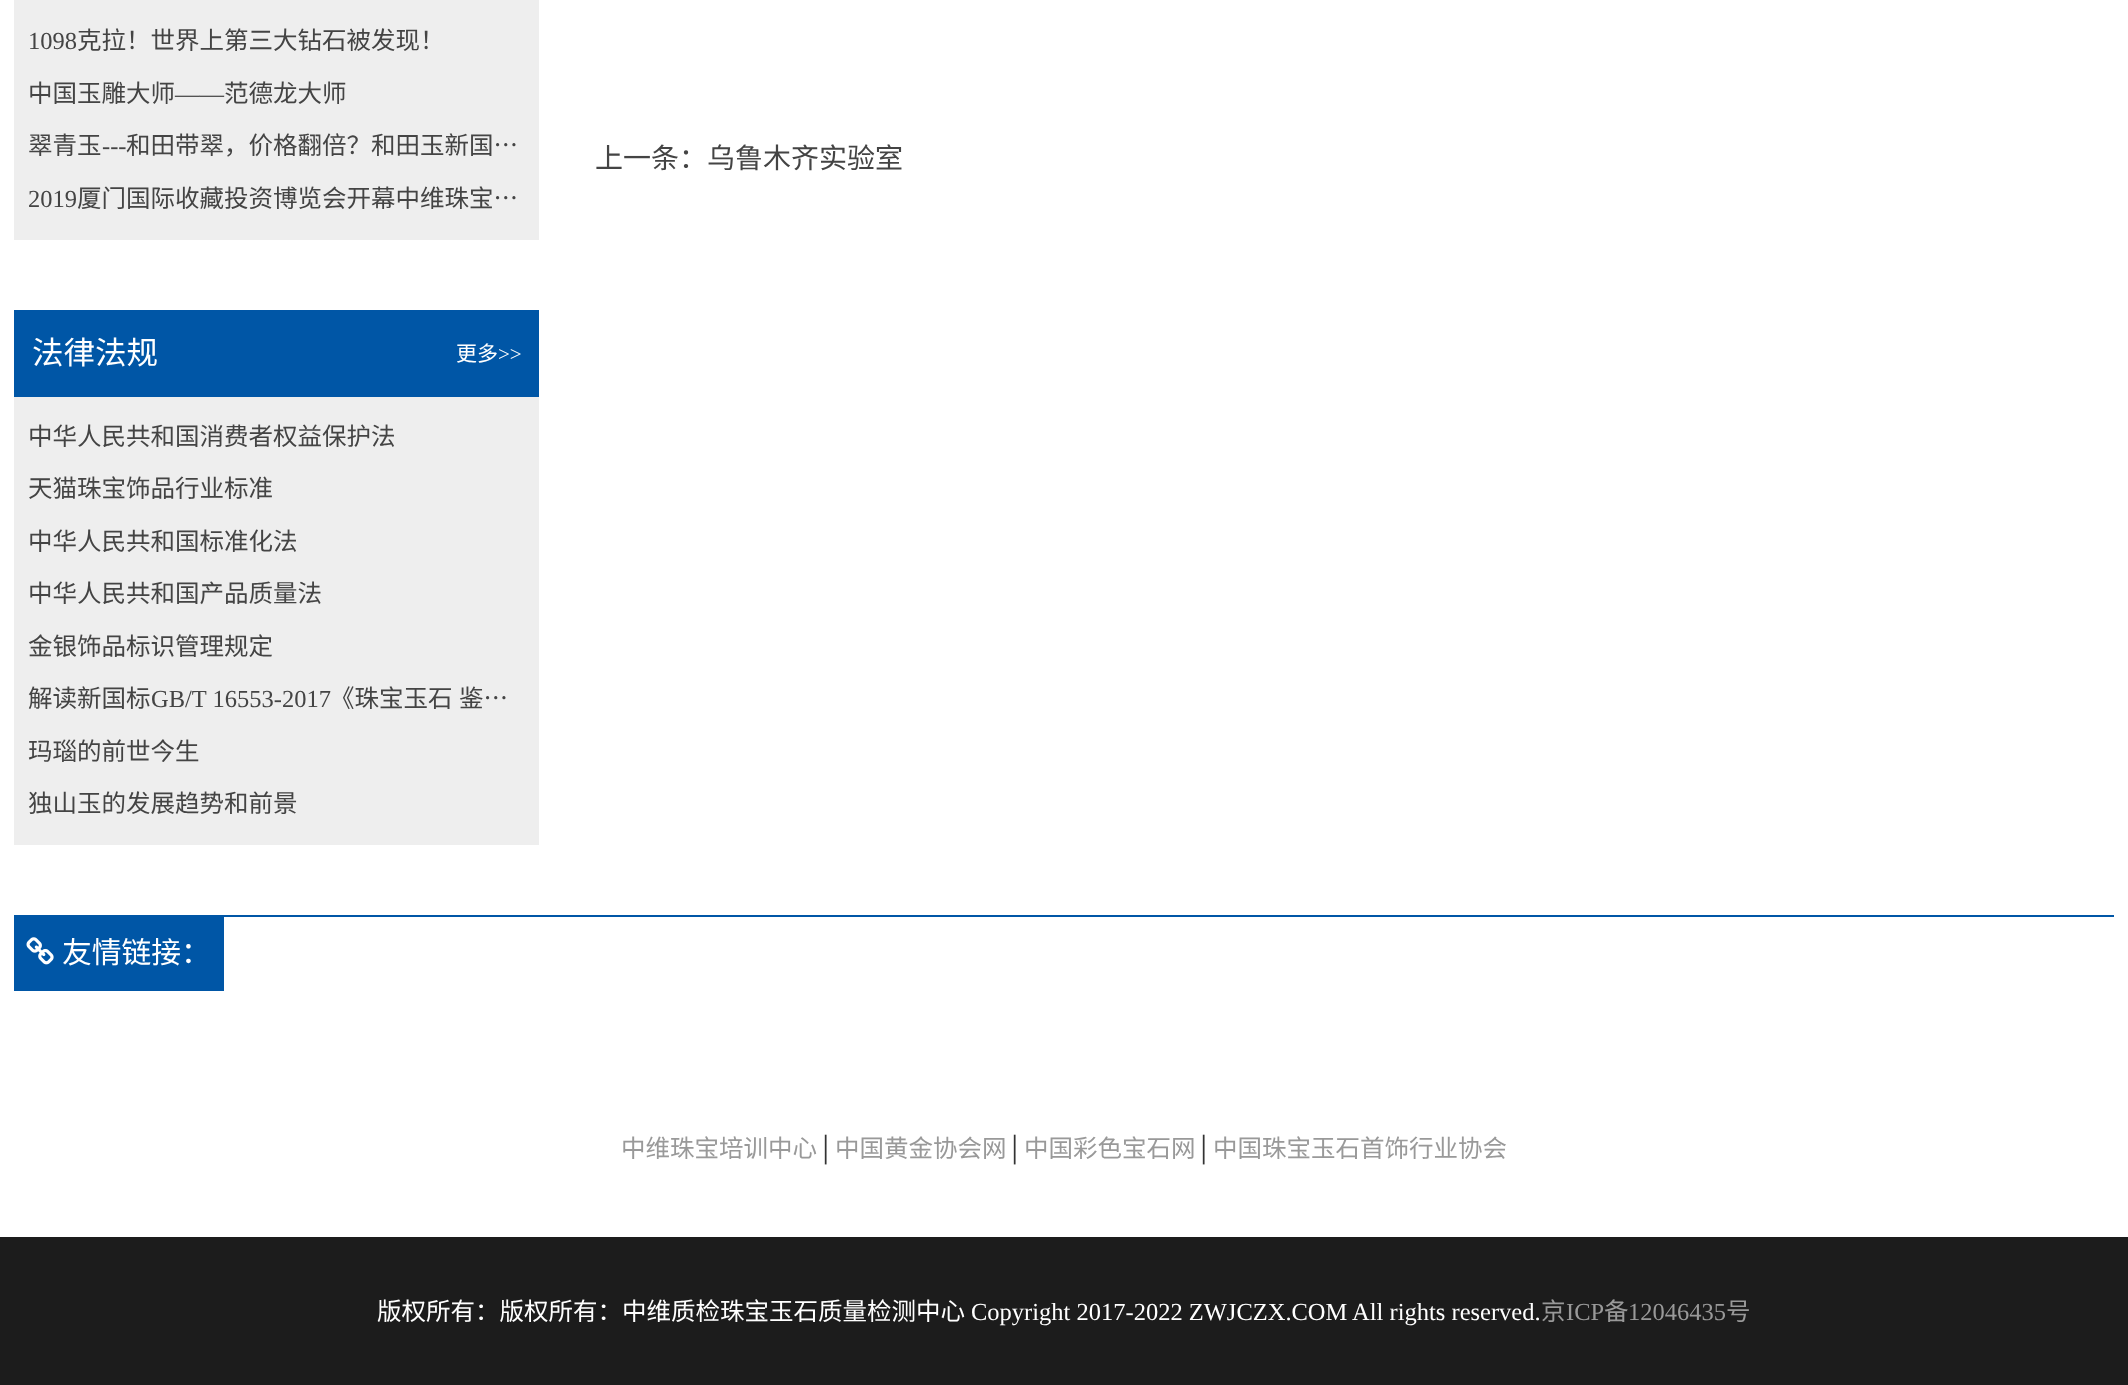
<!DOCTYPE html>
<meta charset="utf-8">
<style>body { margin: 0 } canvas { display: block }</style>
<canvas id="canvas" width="2128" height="1385"></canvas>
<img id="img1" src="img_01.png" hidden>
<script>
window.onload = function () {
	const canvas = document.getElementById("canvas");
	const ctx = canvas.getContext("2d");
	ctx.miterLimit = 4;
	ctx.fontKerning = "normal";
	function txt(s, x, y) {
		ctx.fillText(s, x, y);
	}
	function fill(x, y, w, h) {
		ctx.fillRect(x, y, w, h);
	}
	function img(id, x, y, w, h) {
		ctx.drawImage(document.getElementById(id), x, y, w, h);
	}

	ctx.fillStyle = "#FFFFFF";
	fill(0, 0, 2128, 1385);
	ctx.fillStyle = "#EEEEEE";
	fill(14, 0, 525, 240);
	fill(14, 397, 525, 448);
	ctx.fillStyle = "#0056A6";
	fill(14, 310, 525, 87);
	fill(14, 915, 2100, 2);
	fill(14, 917, 210, 74);
	img("img1", 26, 937, 28, 28);
	ctx.fillStyle = "#1C1C1C";
	fill(0, 1237, 2128, 148);
	ctx.font = "24.5px Liberation Serif";
	ctx.fillStyle = "#444444";
	txt("1098", 28, 49);
	ctx.font = "24.5px Noto Sans CJK SC";
	txt("克拉！世界上第三大钻石被发现！", 77, 49);
	txt("中国玉雕大师", 28, 102);
	ctx.font = "24.5px Liberation Serif";
	txt("——", 175, 102);
	ctx.font = "24.5px Noto Sans CJK SC";
	txt("范德龙大师", 224, 102);
	txt("翠青玉", 28, 154);
	ctx.font = "24.5px Liberation Serif";
	txt("---", 102, 154);
	ctx.font = "24.5px Noto Sans CJK SC";
	txt("和田带翠，价格翻倍？和田玉新国…", 126, 154);
	ctx.font = "24.5px Liberation Serif";
	txt("2019", 28, 207);
	ctx.font = "24.5px Noto Sans CJK SC";
	txt("厦门国际收藏投资博览会开幕中维珠宝…", 77, 207);
	ctx.font = "31.5px Noto Sans CJK SC";
	ctx.fillStyle = "#FFFFFF";
	txt("法律法规", 32, 364);
	ctx.font = "21px Noto Sans CJK SC";
	txt("更多", 456, 361);
	ctx.font = "21px Liberation Serif";
	txt(">>", 498, 361);
	ctx.font = "24.5px Noto Sans CJK SC";
	ctx.fillStyle = "#444444";
	txt("中华人民共和国消费者权益保护法", 28, 445);
	txt("天猫珠宝饰品行业标准", 28, 497);
	txt("中华人民共和国标准化法", 28, 550);
	txt("中华人民共和国产品质量法", 28, 602);
	txt("金银饰品标识管理规定", 28, 655);
	txt("解读新国标", 28, 707);
	ctx.font = "24.5px Liberation Serif";
	txt("GB/T 16553-2017", 151, 707);
	ctx.font = "24.5px Noto Sans CJK SC";
	txt("《珠宝玉石", 330, 707);
	txt("鉴…", 459, 707);
	txt("玛瑙的前世今生", 28, 760);
	txt("独山玉的发展趋势和前景", 28, 812);
	ctx.font = "28px Noto Sans CJK SC";
	txt("上一条：乌鲁木齐实验室", 595, 168);
	ctx.font = "29.75px Noto Sans CJK SC";
	ctx.fillStyle = "#FFFFFF";
	txt("友情链接：", 62, 963);
	ctx.font = "24.5px Noto Sans CJK SC";
	ctx.fillStyle = "#999999";
	txt("中维珠宝培训中心", 621, 1157);
	ctx.font = "24.5px Liberation Serif";
	ctx.fillStyle = "#333333";
	txt("│", 817, 1157);
	ctx.font = "24.5px Noto Sans CJK SC";
	ctx.fillStyle = "#999999";
	txt("中国黄金协会网", 835, 1157);
	ctx.font = "24.5px Liberation Serif";
	ctx.fillStyle = "#333333";
	txt("│", 1006, 1157);
	ctx.font = "24.5px Noto Sans CJK SC";
	ctx.fillStyle = "#999999";
	txt("中国彩色宝石网", 1024, 1157);
	ctx.font = "24.5px Liberation Serif";
	ctx.fillStyle = "#333333";
	txt("│", 1195, 1157);
	ctx.font = "24.5px Noto Sans CJK SC";
	ctx.fillStyle = "#999999";
	txt("中国珠宝玉石首饰行业协会", 1213, 1157);
	ctx.fillStyle = "#FFFFFF";
	txt("版权所有：版权所有：中维质检珠宝玉石质量检测中心", 377, 1320);
	ctx.font = "24.5px Liberation Serif";
	txt("Copyright 2017-2022 ZWJCZX.COM All rights reserved.", 971, 1320);
	ctx.font = "24.5px Noto Sans CJK SC";
	ctx.fillStyle = "#999999";
	txt("京", 1541, 1320);
	ctx.font = "24.5px Liberation Serif";
	txt("ICP", 1566, 1320);
	ctx.font = "24.5px Noto Sans CJK SC";
	txt("备", 1604, 1320);
	ctx.font = "24.5px Liberation Serif";
	txt("12046435", 1628, 1320);
	ctx.font = "24.5px Noto Sans CJK SC";
	txt("号", 1726, 1320);
};
</script>
